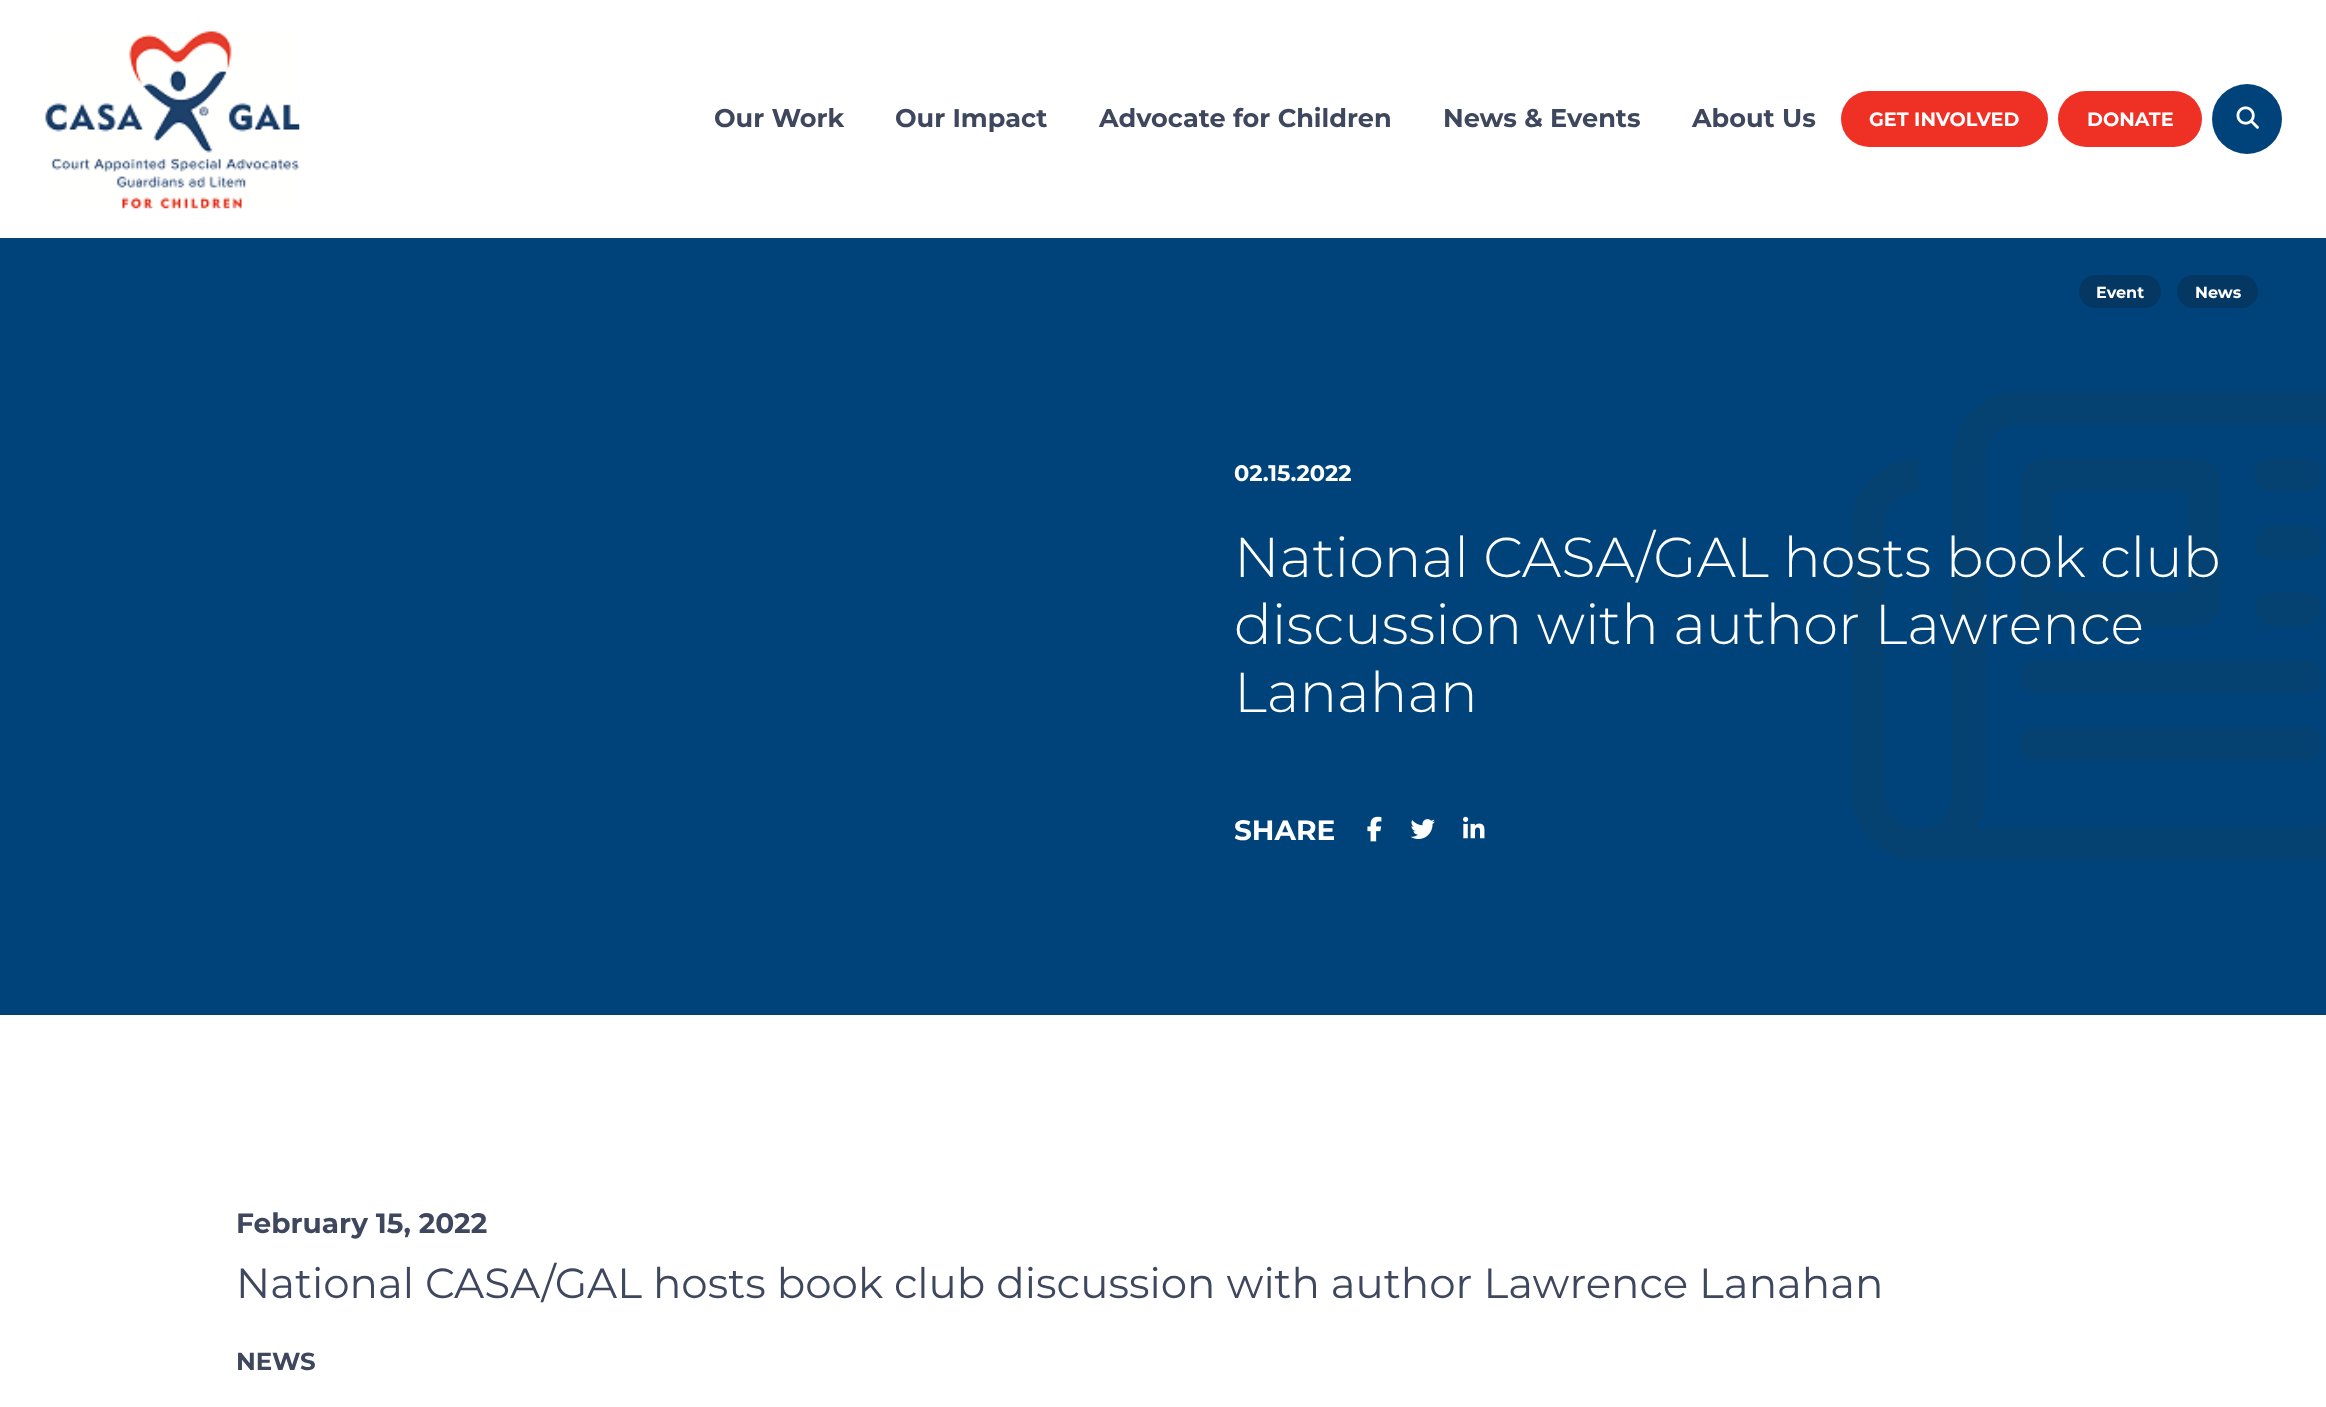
<!DOCTYPE html>
<meta charset="utf-8">
<style>body { margin: 0 } canvas { display: block }</style>
<canvas id="canvas" width="2326" height="1407"></canvas>
<img id="img1" src="img_01.png" hidden>
<img id="img2" src="img_02.png" hidden>
<img id="img3" src="img_03.png" hidden>
<img id="img4" src="img_04.png" hidden>
<img id="img5" src="img_05.png" hidden>
<img id="img6" src="img_06.png" hidden>
<script>
window.onload = function () {
	const canvas = document.getElementById("canvas");
	const ctx = canvas.getContext("2d");
	ctx.miterLimit = 4;
	ctx.fontKerning = "normal";
	function txt(s, x, y) {
		ctx.fillText(s, x, y);
	}
	function fill(x, y, w, h) {
		ctx.fillRect(x, y, w, h);
	}
	function round(x, y, w, h, r) {
		ctx.beginPath();
		ctx.roundRect(x, y, w, h, r);
		ctx.fill();
	}
	function img(id, x, y, w, h) {
		ctx.drawImage(document.getElementById(id), x, y, w, h);
	}

	ctx.fillStyle = "#FFFFFF";
	fill(0, 0, 2326, 1407);
	img("img1", 45, 31, 255, 178);
	ctx.fillStyle = "#EE3124";
	round(1841, 91, 207, 56, 28);
	round(2058, 91, 144, 56, 28);
	ctx.fillStyle = "#00437A";
	ctx.beginPath();
	ctx.arc(2247, 119, 35, 0, Math.PI * 2);
	ctx.fill();
	img("img2", 2236, 106, 23, 23);
	fill(0, 238, 2326, 777);
	ctx.fillStyle = "#043761";
	round(2079, 275, 82, 33, 16.5);
	round(2177, 275, 81, 33, 16.5);
	img("img3", 1367, 816, 15, 26);
	img("img4", 1410, 819, 25, 20);
	img("img5", 1463, 816, 22, 23);
	img("img6", 1851, 391, 475, 470);
	ctx.font = "bold 25.6px Montserrat";
	ctx.fillStyle = "#3F475E";
	txt("Our Work", 714, 127);
	txt("Our Impact", 895, 127);
	txt("Advocate for Children", 1099, 127);
	txt("News & Events", 1443, 127);
	txt("About Us", 1692, 127);
	ctx.font = "bold 19.25px Montserrat";
	ctx.fillStyle = "#FFFFFF";
	txt("GET INVOLVED", 1869, 126);
	txt("DONATE", 2087, 126);
	ctx.font = "bold 16px Montserrat";
	txt("Event", 2096, 298);
	txt("News", 2195, 298);
	ctx.font = "bold 22.5px Montserrat";
	txt("02.15.2022", 1234, 481);
	ctx.font = "300 56px Montserrat";
	txt("National CASA/GAL hosts book club", 1234, 577);
	txt("discussion with author Lawrence", 1234, 644);
	txt("Lanahan", 1234, 712);
	ctx.font = "bold 28px Montserrat";
	txt("SHARE", 1234, 840);
	ctx.fillStyle = "#3F475E";
	txt("February 15, 2022", 236, 1233);
	ctx.font = "42px Montserrat";
	txt("National CASA/GAL hosts book club discussion with author Lawrence Lanahan", 236, 1298);
	ctx.font = "bold 24.5px Montserrat";
	txt("NEWS", 236, 1370);
};
</script>
